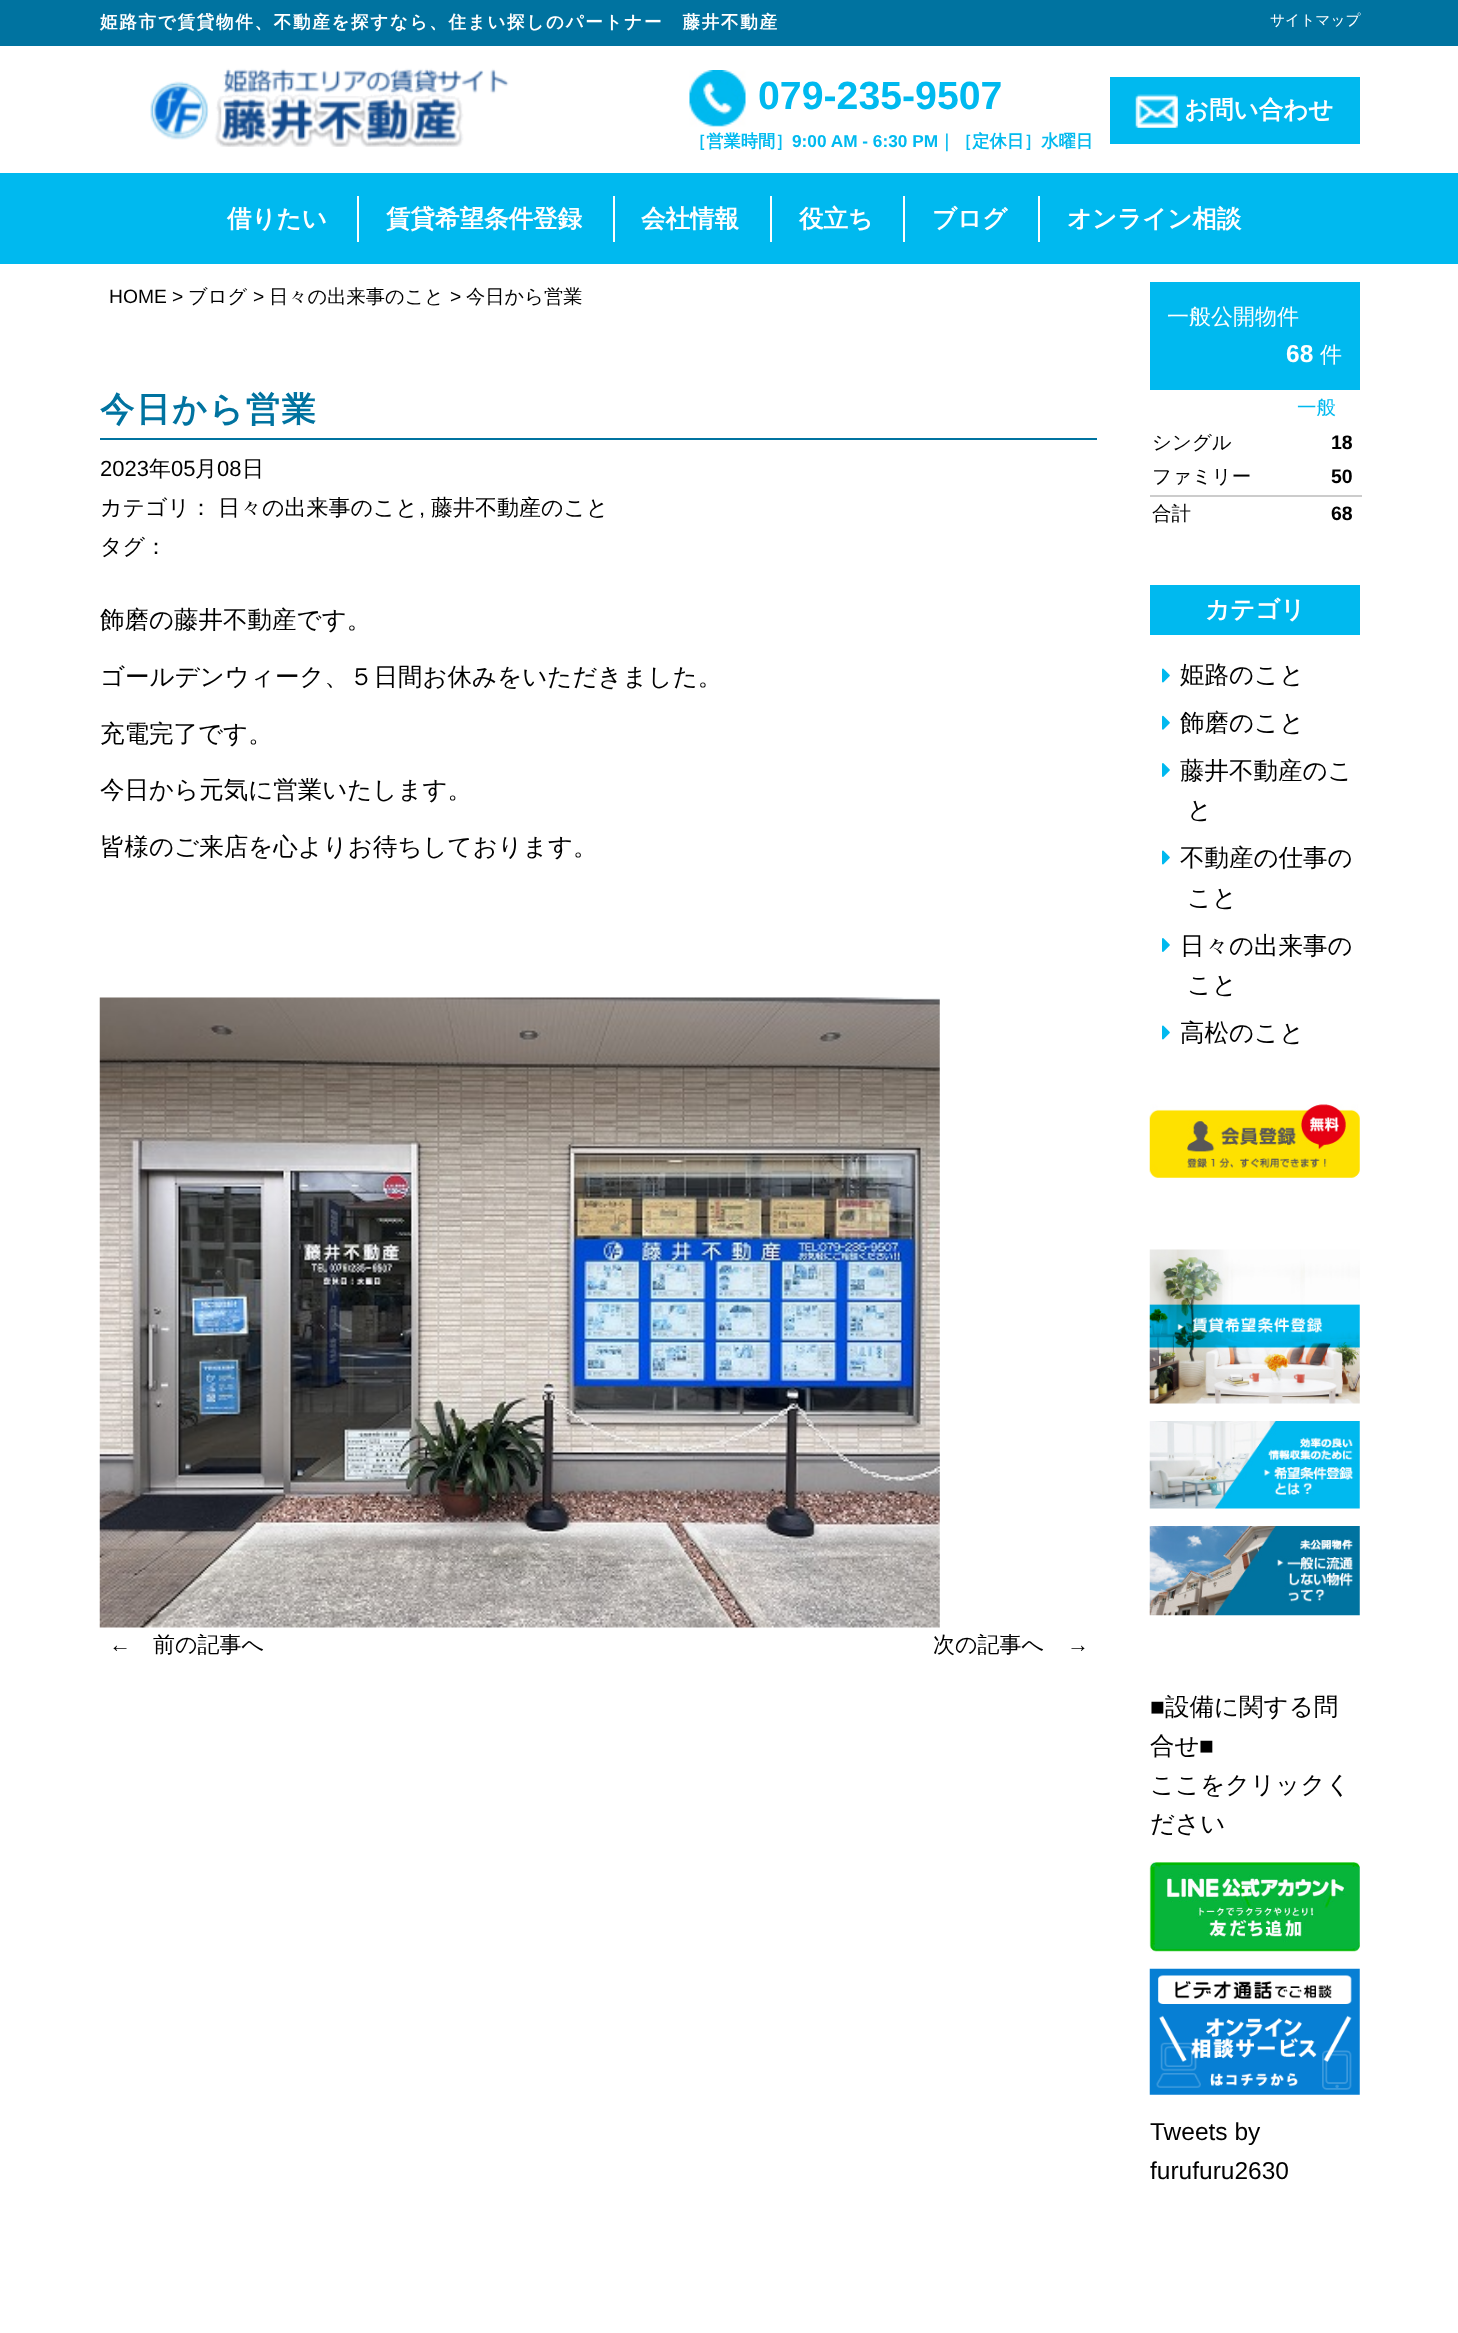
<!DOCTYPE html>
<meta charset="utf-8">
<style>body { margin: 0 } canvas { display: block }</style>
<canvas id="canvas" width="1458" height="2333"></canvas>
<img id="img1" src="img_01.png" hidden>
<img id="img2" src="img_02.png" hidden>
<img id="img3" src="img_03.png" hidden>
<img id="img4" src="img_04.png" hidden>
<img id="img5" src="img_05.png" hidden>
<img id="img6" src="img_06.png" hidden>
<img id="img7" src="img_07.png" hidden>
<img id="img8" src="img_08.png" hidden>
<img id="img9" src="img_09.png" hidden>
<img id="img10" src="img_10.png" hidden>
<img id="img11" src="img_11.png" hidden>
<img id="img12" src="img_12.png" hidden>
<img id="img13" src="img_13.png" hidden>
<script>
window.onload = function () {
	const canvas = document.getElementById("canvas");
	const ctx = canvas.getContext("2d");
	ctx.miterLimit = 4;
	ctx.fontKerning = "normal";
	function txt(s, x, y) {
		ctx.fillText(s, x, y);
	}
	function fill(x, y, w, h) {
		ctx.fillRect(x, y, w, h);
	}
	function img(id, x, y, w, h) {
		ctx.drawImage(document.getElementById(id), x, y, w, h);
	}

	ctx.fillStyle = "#FFFFFF";
	fill(0, 0, 1458, 2333);
	ctx.fillStyle = "#0073A0";
	fill(0, 0, 1458, 46);
	img("img1", 150, 68, 359, 79);
	img("img2", 689, 70, 57, 57);
	ctx.fillStyle = "#00B9EF";
	fill(1110, 77, 250, 67);
	img("img3", 1135, 94, 43, 34);
	fill(0, 173, 1458, 91);
	ctx.fillStyle = "#FFFFFF";
	fill(357, 196, 2, 46);
	fill(613, 196, 2, 46);
	fill(770, 196, 2, 46);
	fill(903, 196, 2, 46);
	fill(1038, 196, 2, 46);
	ctx.fillStyle = "#0073A0";
	fill(100, 438, 997, 2);
	img("img4", 99, 997, 841, 631);
	ctx.fillStyle = "#00B9EF";
	fill(1150, 282, 210, 108);
	ctx.fillStyle = "#CCCCCC";
	fill(1150, 495, 212, 2);
	ctx.fillStyle = "#00B9EF";
	fill(1150, 585, 210, 50);
	img("img5", 1162, 668, 8, 15);
	img("img6", 1162, 715, 8, 15);
	img("img7", 1162, 763, 8, 14);
	img("img5", 1162, 850, 8, 15);
	img("img7", 1162, 938, 8, 14);
	img("img5", 1162, 1025, 8, 15);
	img("img8", 1149, 1104, 211, 74);
	img("img9", 1149, 1249, 211, 155);
	img("img10", 1149, 1421, 211, 88);
	img("img11", 1149, 1526, 211, 90);
	img("img12", 1149, 1862, 211, 90);
	img("img13", 1149, 1968, 211, 127);
	ctx.letterSpacing = "1.75px";
	ctx.font = "bold 17.5px WenQuanYi Zen Hei";
	ctx.fillStyle = "#FFFFFF";
	txt("姫路市で賃貸物件、不動産を探すなら、住まい探しのパートナー　藤井不動産", 100, 28);
	ctx.letterSpacing = "0px";
	ctx.font = "500 14.75px WenQuanYi Zen Hei";
	txt("サイトマップ", 1270, 25);
	ctx.font = "bold 39.25px Liberation Sans";
	ctx.fillStyle = "#00B9EF";
	txt("079-235-9507", 758, 109);
	ctx.font = "bold 17.25px WenQuanYi Zen Hei";
	txt("［営業時間］", 689, 147);
	ctx.font = "bold 17.25px Liberation Sans";
	txt("9:00 AM - 6:30 PM", 792, 147);
	ctx.font = "bold 17.25px WenQuanYi Zen Hei";
	txt("｜［定休日］水曜日", 938, 147);
	ctx.font = "bold 24.5px WenQuanYi Zen Hei";
	ctx.fillStyle = "#FFFFFF";
	txt("お問い合わせ", 1184, 118);
	txt("借りたい", 227, 227);
	txt("賃貸希望条件登録", 386, 227);
	txt("会社情報", 641, 227);
	txt("役立ち", 799, 227);
	txt("ブログ", 932, 227);
	txt("オンライン相談", 1067, 227);
	ctx.font = "19.25px Liberation Sans";
	ctx.fillStyle = "#000000";
	txt("HOME >", 109, 303);
	ctx.font = "500 19.25px WenQuanYi Zen Hei";
	txt("ブログ", 188, 303);
	ctx.font = "19.25px Liberation Sans";
	txt(">", 253, 303);
	ctx.font = "500 19.25px WenQuanYi Zen Hei";
	txt("日々の出来事のこと", 269, 303);
	ctx.font = "19.25px Liberation Sans";
	txt(">", 450, 303);
	ctx.font = "500 19.25px WenQuanYi Zen Hei";
	txt("今日から営業", 466, 303);
	ctx.letterSpacing = "1.75px";
	ctx.font = "bold 34.25px WenQuanYi Zen Hei";
	ctx.fillStyle = "#0073A0";
	txt("今日から営業", 100, 421);
	ctx.letterSpacing = "0px";
	ctx.font = "22px Liberation Sans";
	ctx.fillStyle = "#000000";
	txt("2023", 100, 476);
	ctx.font = "500 22px WenQuanYi Zen Hei";
	txt("年", 149, 476);
	ctx.font = "22px Liberation Sans";
	txt("05", 171, 476);
	ctx.font = "500 22px WenQuanYi Zen Hei";
	txt("月", 195, 476);
	ctx.font = "22px Liberation Sans";
	txt("08", 217, 476);
	ctx.font = "500 22px WenQuanYi Zen Hei";
	txt("日", 242, 476);
	txt("カテゴリ：", 100, 515);
	txt("日々の出来事のこと", 218, 515);
	ctx.font = "22px Liberation Sans";
	txt(",", 419, 515);
	ctx.font = "500 22px WenQuanYi Zen Hei";
	txt("藤井不動産のこと", 431, 515);
	txt("タグ：", 100, 554);
	ctx.font = "500 24.5px WenQuanYi Zen Hei";
	txt("飾磨の藤井不動産です。", 100, 628);
	txt("ゴールデンウィーク、５日間お休みをいただきました。", 100, 685);
	txt("充電完了です。", 100, 742);
	txt("今日から元気に営業いたします。", 100, 798);
	txt("皆様のご来店を心よりお待ちしております。", 100, 855);
	ctx.font = "22px Liberation Sans";
	txt("←", 109, 1652);
	ctx.font = "500 22px WenQuanYi Zen Hei";
	txt("前の記事へ", 153, 1652);
	txt("次の記事へ", 933, 1652);
	ctx.font = "22px Liberation Sans";
	txt("→", 1067, 1652);
	ctx.font = "500 22px WenQuanYi Zen Hei";
	ctx.fillStyle = "#FFFFFF";
	txt("一般公開物件", 1167, 324);
	ctx.font = "bold 24.5px Liberation Sans";
	txt("68", 1286, 362);
	ctx.font = "500 22px WenQuanYi Zen Hei";
	txt("件", 1320, 362);
	ctx.font = "500 19.5px WenQuanYi Zen Hei";
	ctx.fillStyle = "#00B9EF";
	txt("一般", 1297, 414);
	ctx.fillStyle = "#000000";
	txt("シングル", 1152, 449);
	ctx.font = "bold 19.5px Liberation Sans";
	txt("18", 1331, 449);
	ctx.font = "500 19.5px WenQuanYi Zen Hei";
	txt("ファミリー", 1152, 483);
	ctx.font = "bold 19.5px Liberation Sans";
	txt("50", 1331, 483);
	ctx.font = "500 19.5px WenQuanYi Zen Hei";
	txt("合計", 1152, 520);
	ctx.font = "bold 19.5px Liberation Sans";
	txt("68", 1331, 520);
	ctx.font = "bold 24.5px WenQuanYi Zen Hei";
	ctx.fillStyle = "#FFFFFF";
	txt("カテゴリ", 1205, 618);
	ctx.font = "500 24.5px WenQuanYi Zen Hei";
	ctx.fillStyle = "#000000";
	txt("姫路のこと", 1180, 683);
	txt("飾磨のこと", 1180, 731);
	txt("藤井不動産のこ", 1180, 779);
	txt("と", 1187, 818);
	txt("不動産の仕事の", 1180, 866);
	txt("こと", 1187, 906);
	txt("日々の出来事の", 1180, 954);
	txt("こと", 1187, 993);
	txt("高松のこと", 1180, 1041);
	ctx.font = "24.5px Liberation Sans";
	txt("■", 1150, 1715);
	ctx.font = "500 24.5px WenQuanYi Zen Hei";
	txt("設備に関する問", 1165, 1715);
	txt("合せ", 1150, 1754);
	ctx.font = "24.5px Liberation Sans";
	txt("■", 1199, 1754);
	ctx.font = "500 24.5px WenQuanYi Zen Hei";
	txt("ここをクリックく", 1150, 1793);
	txt("ださい", 1150, 1832);
	ctx.font = "24.5px Liberation Sans";
	txt("Tweets by", 1150, 2140);
	txt("furufuru2630", 1150, 2179);
};
</script>
